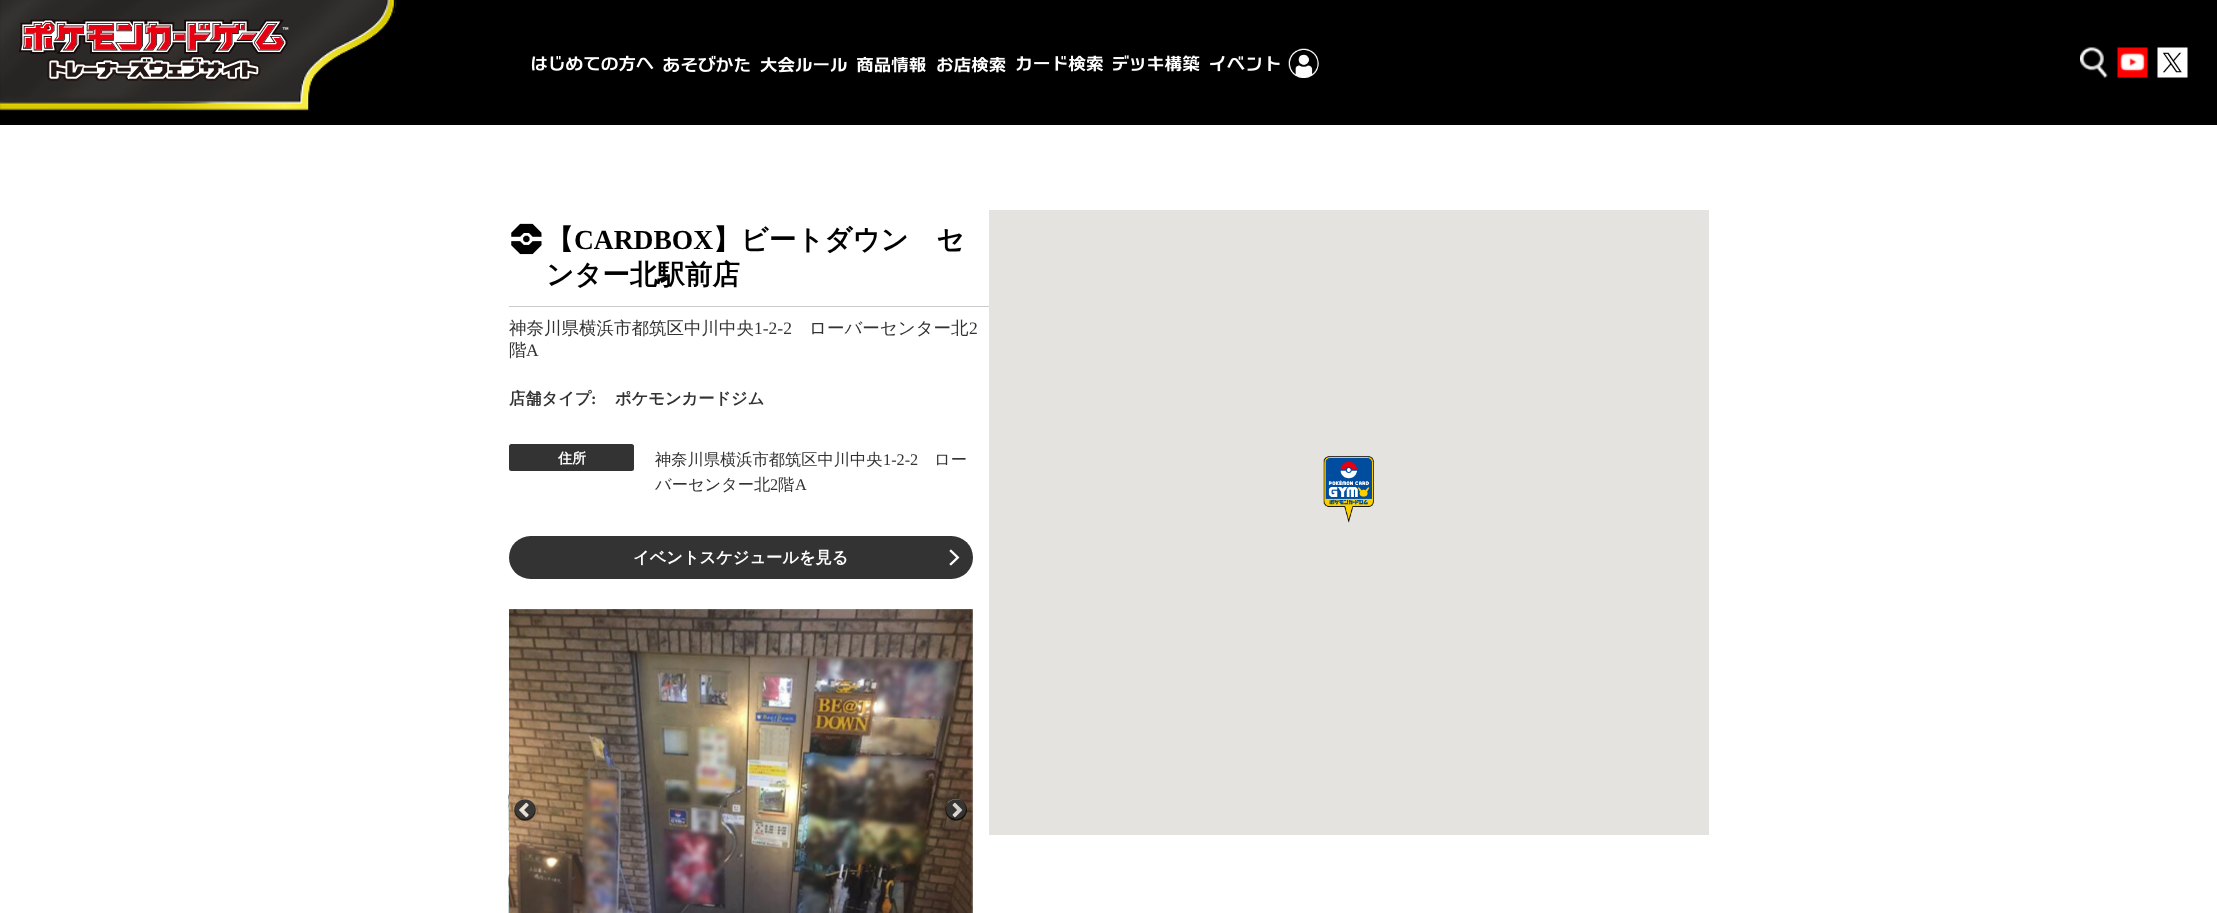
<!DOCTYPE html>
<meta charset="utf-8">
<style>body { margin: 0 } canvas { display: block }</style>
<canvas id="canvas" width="2217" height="913"></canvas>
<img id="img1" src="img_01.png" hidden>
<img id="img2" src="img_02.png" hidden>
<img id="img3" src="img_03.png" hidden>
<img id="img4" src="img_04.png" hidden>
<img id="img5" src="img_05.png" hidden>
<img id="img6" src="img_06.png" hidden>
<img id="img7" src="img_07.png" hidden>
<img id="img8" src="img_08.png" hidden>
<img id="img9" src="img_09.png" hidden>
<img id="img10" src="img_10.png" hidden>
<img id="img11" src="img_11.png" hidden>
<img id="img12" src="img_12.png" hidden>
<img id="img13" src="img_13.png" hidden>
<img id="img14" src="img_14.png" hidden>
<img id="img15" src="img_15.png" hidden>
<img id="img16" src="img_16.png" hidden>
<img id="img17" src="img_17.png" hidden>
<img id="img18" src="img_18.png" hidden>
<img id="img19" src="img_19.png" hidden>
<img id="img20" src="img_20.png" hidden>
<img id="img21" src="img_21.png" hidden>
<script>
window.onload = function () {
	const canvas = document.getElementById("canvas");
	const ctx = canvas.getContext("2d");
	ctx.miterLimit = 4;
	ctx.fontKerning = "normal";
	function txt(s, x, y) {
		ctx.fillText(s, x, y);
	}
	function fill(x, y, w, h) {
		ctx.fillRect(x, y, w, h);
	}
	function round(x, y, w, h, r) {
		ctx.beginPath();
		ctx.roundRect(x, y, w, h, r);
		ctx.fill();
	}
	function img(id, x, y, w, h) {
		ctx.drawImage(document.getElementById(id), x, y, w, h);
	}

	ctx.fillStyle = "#FFFFFF";
	fill(0, 0, 2217, 913);
	ctx.fillStyle = "#000000";
	fill(0, 0, 2217, 125);
	img("img1", 0, 0, 397, 111);
	img("img2", 19, 19, 270, 62);
	img("img3", 531, 55, 123, 17);
	img("img4", 663, 55, 87, 18);
	img("img5", 760, 56, 87, 17);
	img("img6", 857, 56, 69, 17);
	img("img7", 937, 57, 69, 16);
	img("img8", 1016, 55, 87, 17);
	img("img9", 1113, 55, 87, 17);
	img("img10", 1210, 56, 70, 16);
	img("img11", 1288, 48, 31, 30);
	img("img12", 2080, 47, 28, 31);
	img("img13", 2117, 47, 31, 31);
	img("img14", 2157, 47, 31, 31);
	ctx.fillStyle = "#CCCCCC";
	fill(509, 306, 480, 1);
	img("img15", 511, 223, 31, 32);
	ctx.fillStyle = "#333333";
	round(509, 444, 125, 27, 2.5);
	round(509, 536, 464, 43, 21.5);
	img("img16", 949, 549, 11, 17);
	img("img17", 508, 754, 1, 159);
	img("img18", 509, 609, 464, 304);
	ctx.fillStyle = "rgba(255, 255, 255, 0.75)";
	ctx.beginPath();
	ctx.arc(525, 809, 10, 0, Math.PI * 2);
	ctx.fill();
	img("img19", 514, 799, 22, 22);
	ctx.beginPath();
	ctx.arc(956, 809, 10, 0, Math.PI * 2);
	ctx.fill();
	img("img20", 945, 799, 22, 22);
	ctx.fillStyle = "#E5E3DF";
	fill(989, 210, 720, 625);
	img("img21", 1323, 456, 51, 67);
	ctx.font = "bold 27.5px WenQuanYi Zen Hei";
	ctx.fillStyle = "#000000";
	txt("【", 546, 249);
	ctx.font = "bold 27.5px Liberation Serif";
	txt("CARDBOX", 574, 249);
	ctx.font = "bold 27.5px WenQuanYi Zen Hei";
	txt("】ビートダウン　セ", 713, 249);
	txt("ンター北駅前店", 546, 284);
	ctx.font = "500 17.5px WenQuanYi Zen Hei";
	ctx.fillStyle = "#333333";
	txt("神奈川県横浜市都筑区中川中央", 509, 334);
	ctx.font = "17.5px Liberation Serif";
	txt("1-2-2", 754, 334);
	ctx.font = "500 17.5px WenQuanYi Zen Hei";
	txt("ローバーセンター北", 809, 334);
	ctx.font = "17.5px Liberation Serif";
	txt("2", 969, 334);
	ctx.font = "500 17.5px WenQuanYi Zen Hei";
	txt("階", 509, 356);
	ctx.font = "17.5px Liberation Serif";
	txt("A", 526, 356);
	ctx.font = "bold 16.25px WenQuanYi Zen Hei";
	txt("店舗タイプ", 509, 404);
	ctx.font = "bold 16.25px Liberation Serif";
	txt(":", 591, 404);
	ctx.font = "bold 16.25px WenQuanYi Zen Hei";
	txt("ポケモンカードジム", 615, 404);
	ctx.font = "bold 14px WenQuanYi Zen Hei";
	ctx.fillStyle = "#FFFFFF";
	txt("住所", 558, 463);
	ctx.font = "500 16.25px WenQuanYi Zen Hei";
	ctx.fillStyle = "#333333";
	txt("神奈川県横浜市都筑区中川中央", 655, 465);
	ctx.font = "16.25px Liberation Serif";
	txt("1-2-2", 883, 465);
	ctx.font = "500 16.25px WenQuanYi Zen Hei";
	txt("ロー", 934, 465);
	txt("バーセンター北", 655, 490);
	ctx.font = "16.25px Liberation Serif";
	txt("2", 770, 490);
	ctx.font = "500 16.25px WenQuanYi Zen Hei";
	txt("階", 778, 490);
	ctx.font = "16.25px Liberation Serif";
	txt("A", 795, 490);
	ctx.font = "bold 16.25px WenQuanYi Zen Hei";
	ctx.fillStyle = "#FFFFFF";
	txt("イベントスケジュールを見る", 633, 563);
};
</script>
